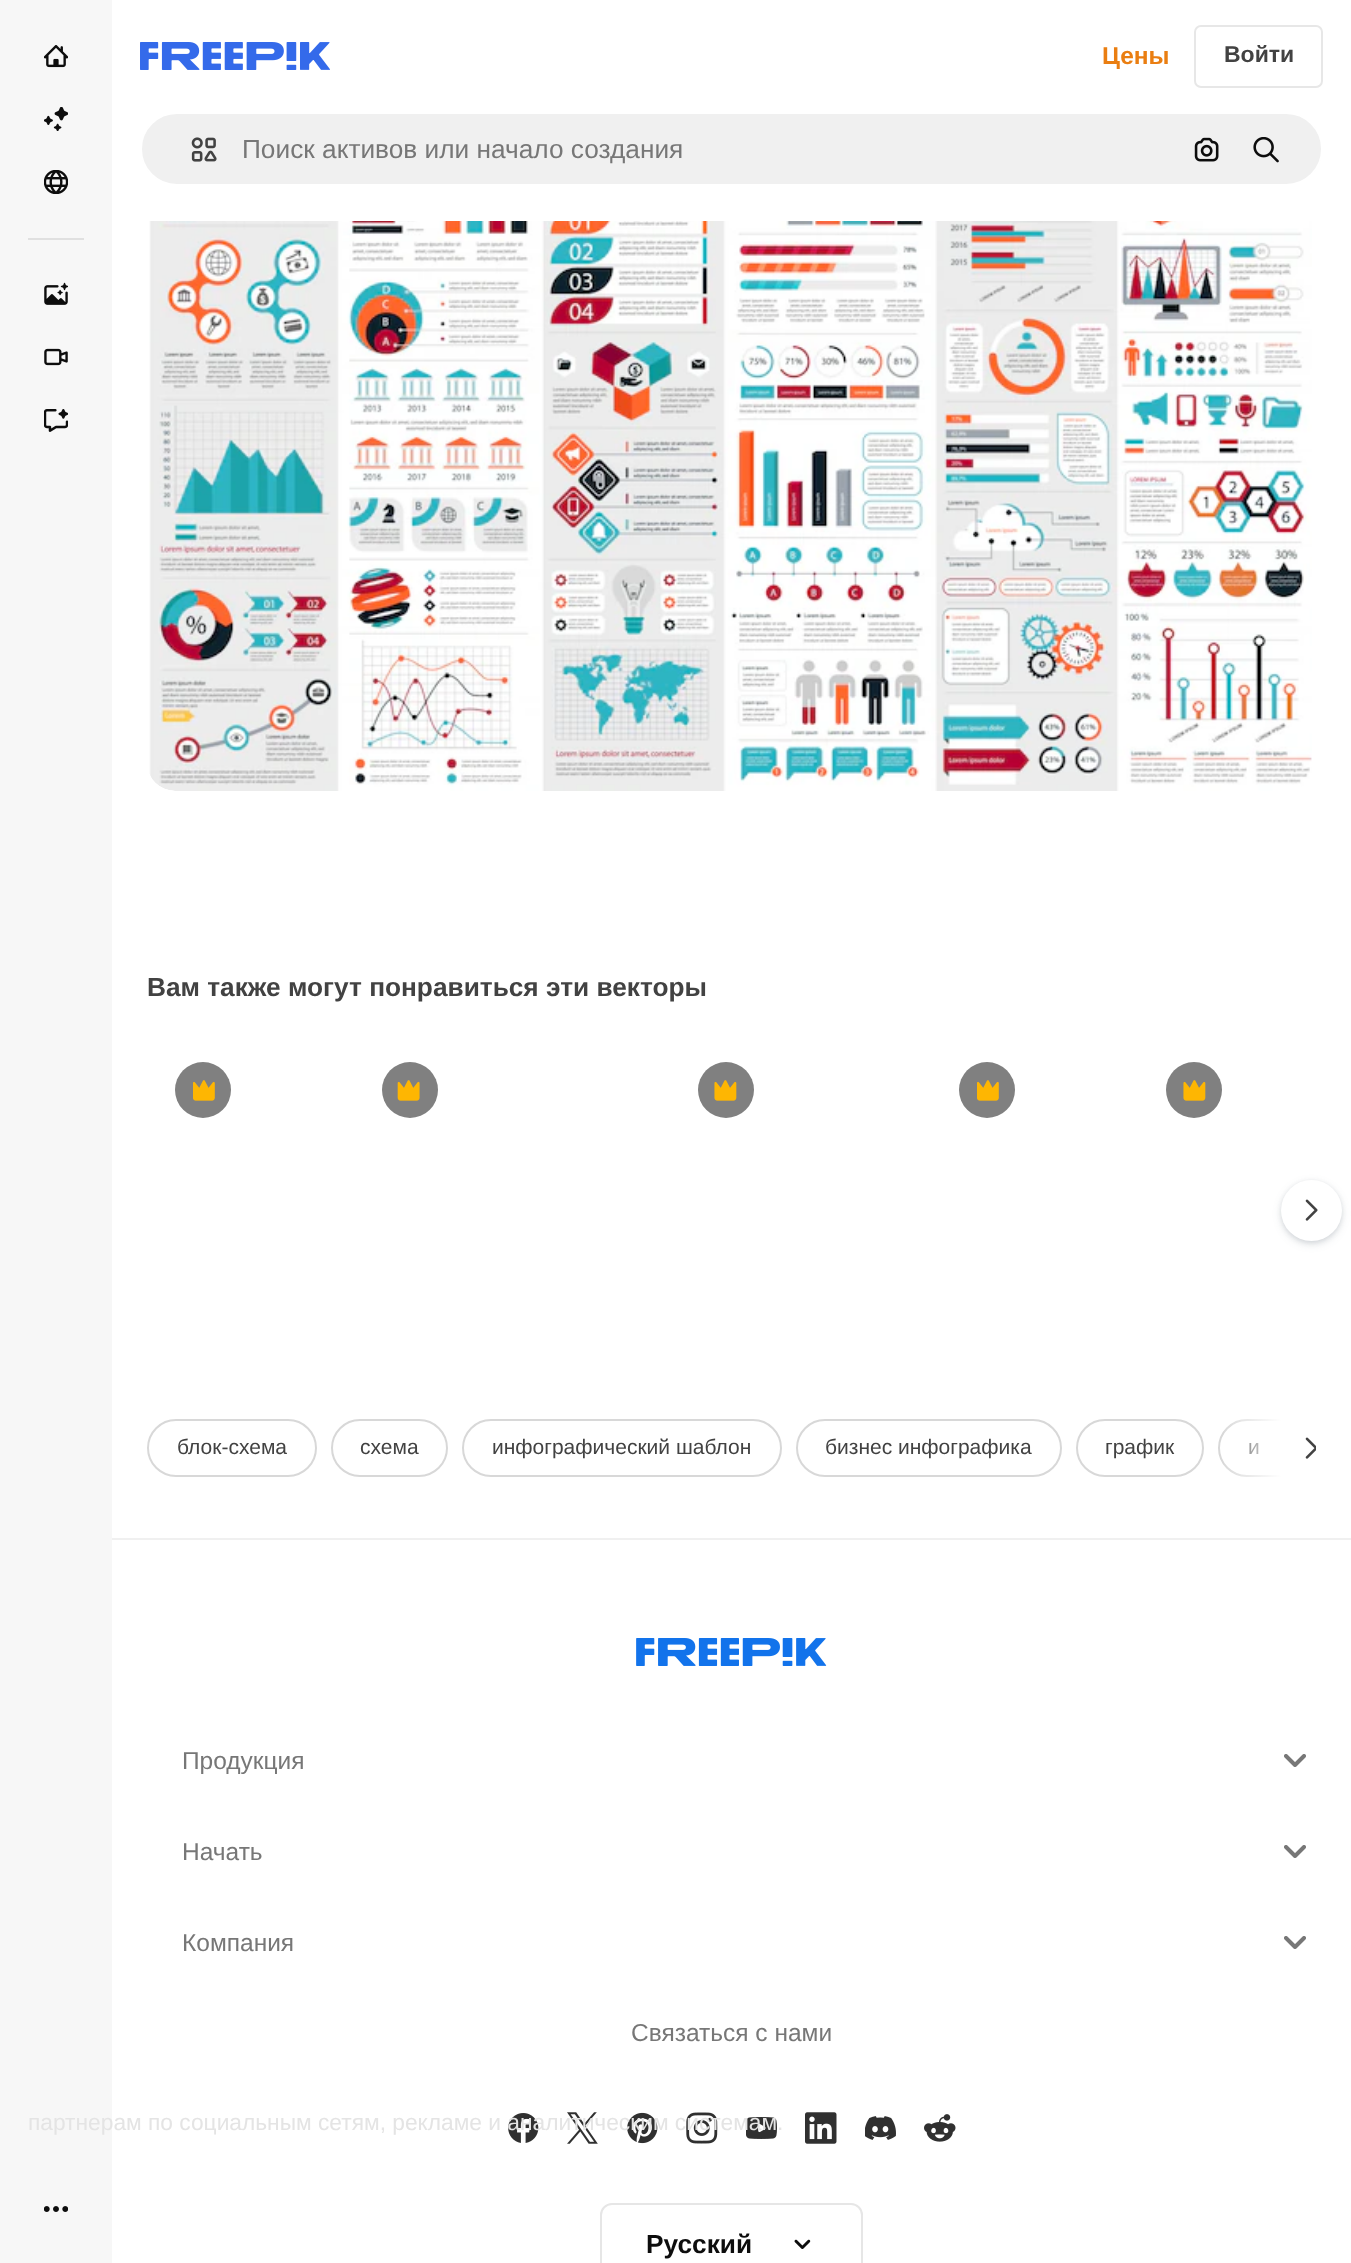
<!DOCTYPE html>
<meta charset="utf-8">
<style>body { margin: 0 } canvas { display: block }</style>
<canvas id="canvas" width="1351" height="2263"></canvas>
<img id="img1" src="img_01.png" hidden>
<img id="img2" src="img_02.png" hidden>
<img id="img3" src="img_03.png" hidden>
<img id="img4" src="img_04.png" hidden>
<img id="img5" src="img_05.png" hidden>
<img id="img6" src="img_06.png" hidden>
<img id="img7" src="img_07.png" hidden>
<img id="img8" src="img_08.png" hidden>
<img id="img9" src="img_09.png" hidden>
<img id="img10" src="img_10.png" hidden>
<img id="img11" src="img_11.png" hidden>
<img id="img12" src="img_12.png" hidden>
<img id="img13" src="img_13.png" hidden>
<img id="img14" src="img_14.png" hidden>
<img id="img15" src="img_15.png" hidden>
<img id="img16" src="img_16.png" hidden>
<img id="img17" src="img_17.png" hidden>
<img id="img18" src="img_18.png" hidden>
<img id="img19" src="img_19.png" hidden>
<img id="img20" src="img_20.png" hidden>
<img id="img21" src="img_21.png" hidden>
<img id="img22" src="img_22.png" hidden>
<img id="img23" src="img_23.png" hidden>
<img id="img24" src="img_24.png" hidden>
<img id="img25" src="img_25.png" hidden>
<img id="img26" src="img_26.png" hidden>
<img id="img27" src="img_27.png" hidden>
<img id="img28" src="img_28.png" hidden>
<script>
window.onload = function () {
	const canvas = document.getElementById("canvas");
	const ctx = canvas.getContext("2d");
	ctx.miterLimit = 4;
	ctx.fontKerning = "normal";
	function txt(s, x, y) {
		ctx.fillText(s, x, y);
	}
	function fill(x, y, w, h) {
		ctx.fillRect(x, y, w, h);
	}
	function img(id, x, y, w, h) {
		ctx.drawImage(document.getElementById(id), x, y, w, h);
	}
	let gradient;

	ctx.fillStyle = "#FFFFFF";
	fill(0, 0, 1351, 2263);
	ctx.fillStyle = "#F7F7F7";
	fill(0, 0, 112, 2263);
	img("img1", 44, 45, 24, 23);
	img("img2", 44, 107, 24, 24);
	img("img3", 44, 170, 24, 24);
	ctx.fillStyle = "#E0E0E0";
	fill(28, 238, 56, 2);
	img("img4", 44, 282, 24, 23);
	img("img5", 44, 348, 24, 18);
	img("img6", 44, 409, 24, 23);
	img("img7", 44, 2206, 24, 6);
	img("img8", 140, 42, 190, 28);
	ctx.beginPath();
	ctx.roundRect(1195, 26, 127, 61, 6);
	ctx.strokeStyle = "#E7E7E7";
	ctx.lineWidth = 2;
	ctx.stroke();
	ctx.fillStyle = "#F0F0F0";
	ctx.beginPath();
	ctx.roundRect(141, 113, 1181, 72, 36);
	ctx.fill();
	ctx.strokeStyle = "#FFFFFF";
	ctx.stroke();
	img("img9", 191, 137, 26, 25);
	img("img10", 1194, 137, 25, 25);
	img("img11", 1253, 137, 26, 26);
	img("img12", 149, 221, 1163, 570);
	ctx.fillStyle = "#808080";
	ctx.beginPath();
	ctx.arc(203, 1090, 28, 0, Math.PI * 2);
	ctx.fill();
	img("img13", 193, 1080, 22, 21);
	ctx.beginPath();
	ctx.arc(410, 1090, 28, 0, Math.PI * 2);
	ctx.fill();
	img("img14", 397, 1080, 23, 21);
	ctx.beginPath();
	ctx.arc(726, 1090, 28, 0, Math.PI * 2);
	ctx.fill();
	img("img15", 714, 1080, 23, 21);
	ctx.beginPath();
	ctx.arc(987, 1090, 28, 0, Math.PI * 2);
	ctx.fill();
	img("img13", 977, 1080, 22, 21);
	ctx.beginPath();
	ctx.arc(1194, 1090, 28, 0, Math.PI * 2);
	ctx.fill();
	img("img15", 1183, 1080, 23, 21);
	ctx.fillStyle = "rgba(55, 73, 87, 0.15)";
	ctx.filter = "blur(4.5px)";
	ctx.beginPath();
	ctx.roundRect(1281, 1183, 61, 61, 30.5);
	ctx.fill();
	ctx.filter = "none";
	ctx.fillStyle = "rgba(55, 73, 87, 0.1)";
	ctx.filter = "blur(2px)";
	ctx.beginPath();
	ctx.roundRect(1281, 1181, 61, 62, 30.5);
	ctx.fill();
	ctx.filter = "none";
	ctx.fillStyle = "#FFFFFF";
	ctx.beginPath();
	ctx.arc(1311.5, 1210.5, 30.5, 0, Math.PI * 2);
	ctx.fill();
	img("img16", 1305, 1199, 13, 22);
	ctx.beginPath();
	ctx.roundRect(148, 1420, 168, 56, 28);
	ctx.strokeStyle = "#D8D8D8";
	ctx.stroke();
	ctx.beginPath();
	ctx.roundRect(332, 1420, 115, 56, 28);
	ctx.stroke();
	ctx.beginPath();
	ctx.roundRect(463, 1420, 318, 56, 28);
	ctx.stroke();
	ctx.beginPath();
	ctx.roundRect(797, 1420, 264, 56, 28);
	ctx.stroke();
	ctx.beginPath();
	ctx.roundRect(1077, 1420, 126, 56, 28);
	ctx.stroke();
	ctx.save();
	ctx.beginPath();
	ctx.rect(147, 1419, 1169, 58);
	ctx.clip();
	ctx.beginPath();
	ctx.roundRect(1219, 1420, 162, 56, 28);
	ctx.stroke();
	ctx.restore();
	fill(1281, 1419, 35, 58);
	img("img17", 1305, 1437, 11, 22);
	ctx.fillStyle = "#F0F0F0";
	fill(112, 1538, 1239, 2);
	img("img18", 636, 1638, 191, 28);
	img("img19", 1284, 1754, 22, 13);
	img("img19", 1284, 1845, 22, 13);
	img("img19", 1284, 1936, 22, 13);
	img("img20", 508, 2113, 31, 30);
	img("img21", 567, 2112, 31, 32);
	img("img22", 627, 2112, 31, 32);
	img("img23", 686, 2112, 32, 32);
	img("img24", 746, 2117, 31, 22);
	img("img25", 805, 2112, 32, 32);
	img("img26", 865, 2116, 31, 24);
	img("img27", 924, 2114, 32, 28);
	ctx.beginPath();
	ctx.roundRect(601, 2204, 261, 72, 11);
	ctx.strokeStyle = "#E6E6E6";
	ctx.stroke();
	img("img28", 794, 2239, 17, 10);
	ctx.font = "bold 24.5px Liberation Sans";
	ctx.fillStyle = "#EA7E11";
	txt("Цены", 1102, 64);
	ctx.font = "bold 23px Liberation Sans";
	ctx.fillStyle = "#424242";
	txt("Войти", 1224, 62);
	ctx.font = "26.25px Liberation Sans";
	ctx.fillStyle = "#777777";
	txt("Поиск активов или начало создания", 242, 158);
	ctx.font = "bold 26.25px Liberation Sans";
	ctx.fillStyle = "#424242";
	txt("Вам также могут понравиться эти векторы", 147, 996);
	ctx.font = "21px Liberation Sans";
	txt("блок-схема", 177, 1454);
	txt("схема", 360, 1454);
	txt("инфографический шаблон", 492, 1454);
	txt("бизнес инфографика", 825, 1454);
	txt("график", 1105, 1454);
	txt("и", 1248, 1454);
	gradient = ctx.createLinearGradient(1281, 1448, 1220, 1448);
	gradient.addColorStop(0, "#FFFFFF");
	gradient.addColorStop(1, "rgba(255, 255, 255, 0)");
	ctx.fillStyle = gradient;
	fill(1224, 1419, 57, 58);
	ctx.font = "24.5px Liberation Sans";
	ctx.fillStyle = "#777777";
	txt("Продукция", 182, 1769);
	txt("Начать", 182, 1860);
	txt("Компания", 182, 1951);
	txt("Связаться с нами", 631, 2041);
	ctx.font = "bold 26.25px Liberation Sans";
	ctx.fillStyle = "#0D0D0D";
	txt("Pусский", 646, 2253);
	ctx.font = "22.75px Liberation Sans";
	ctx.fillStyle = "#E4E4E4";
	txt("партнерам по социальным сетям, рекламе и аналитическим системам.", 28, 2130);
};
</script>
